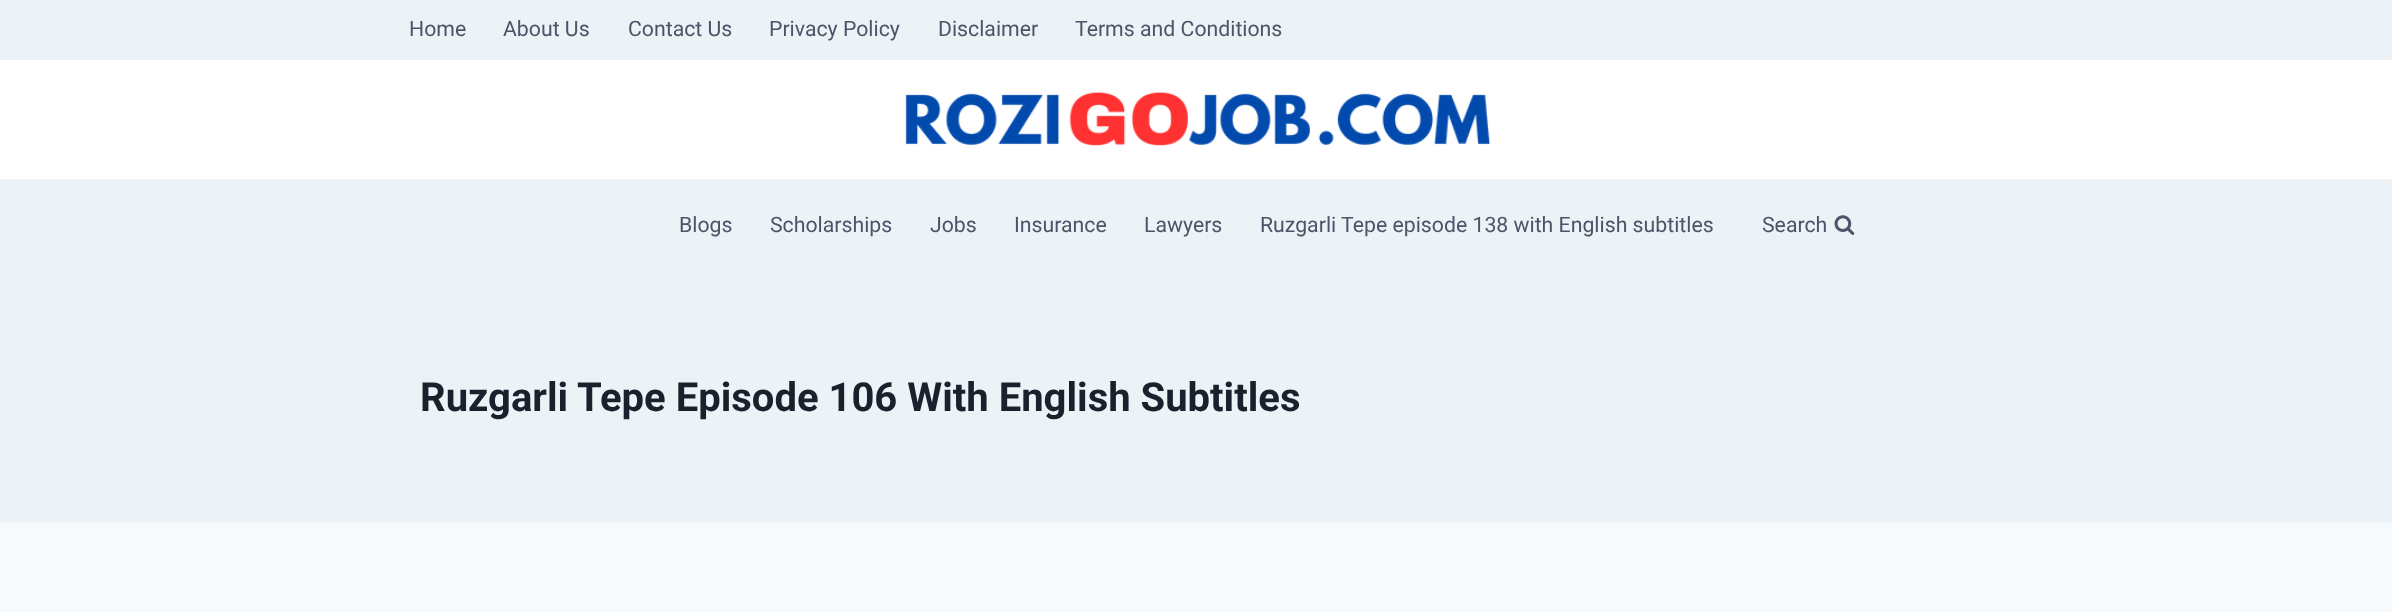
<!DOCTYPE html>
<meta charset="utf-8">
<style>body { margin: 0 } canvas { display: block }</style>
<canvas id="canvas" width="2392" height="612"></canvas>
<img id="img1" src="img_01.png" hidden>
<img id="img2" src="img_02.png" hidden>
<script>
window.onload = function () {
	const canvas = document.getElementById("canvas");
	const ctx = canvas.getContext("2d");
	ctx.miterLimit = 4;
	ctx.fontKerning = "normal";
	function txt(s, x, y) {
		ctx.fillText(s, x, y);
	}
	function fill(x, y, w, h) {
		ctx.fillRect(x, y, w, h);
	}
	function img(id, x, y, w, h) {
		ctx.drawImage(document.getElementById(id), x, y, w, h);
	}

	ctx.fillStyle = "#F7FAFC";
	fill(0, 0, 2392, 612);
	ctx.fillStyle = "#FFFFFF";
	fill(0, 60, 2392, 119);
	ctx.fillStyle = "#EDF2F7";
	fill(0, 0, 2392, 60);
	img("img1", 905, 91, 586, 55);
	fill(0, 179, 2392, 344);
	img("img2", 1834, 215, 21, 20);
	ctx.font = "21.25px Roboto";
	ctx.fillStyle = "#4A5568";
	txt("Home", 409, 36);
	txt("About Us", 503, 36);
	txt("Contact Us", 628, 36);
	txt("Privacy Policy", 769, 36);
	txt("Disclaimer", 938, 36);
	txt("Terms and Conditions", 1075, 36);
	txt("Blogs", 679, 232);
	txt("Scholarships", 770, 232);
	txt("Jobs", 930, 232);
	txt("Insurance", 1014, 232);
	txt("Lawyers", 1144, 232);
	txt("Ruzgarli Tepe episode 138 with English subtitles", 1260, 232);
	txt("Search", 1762, 232);
	ctx.font = "bold 40px Roboto";
	ctx.fillStyle = "#1A202C";
	txt("Ruzgarli Tepe Episode 106 With English Subtitles", 420, 411);
};
</script>
